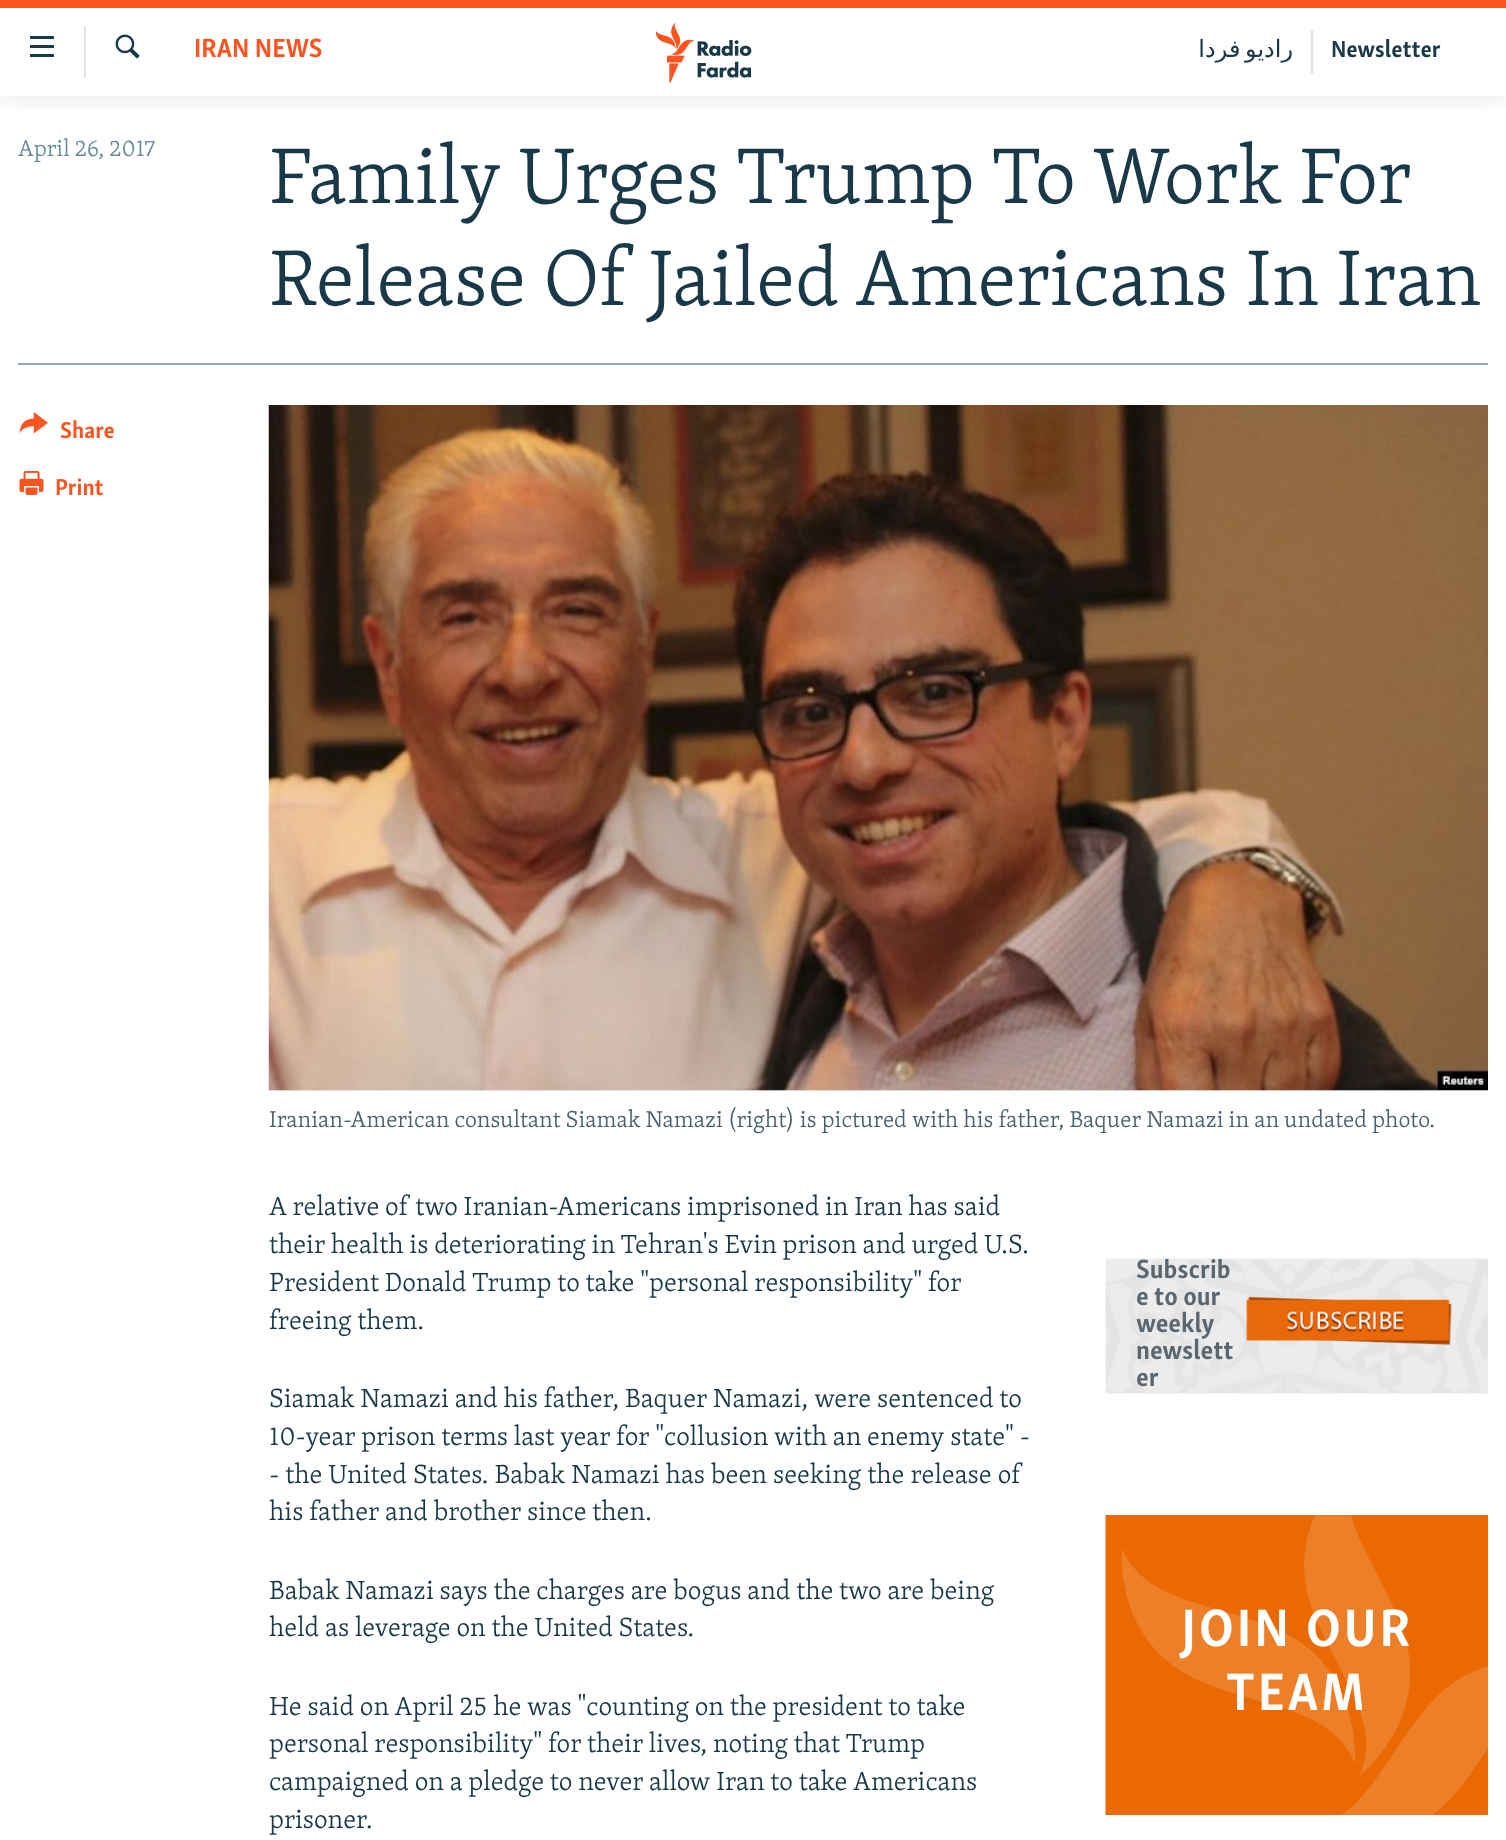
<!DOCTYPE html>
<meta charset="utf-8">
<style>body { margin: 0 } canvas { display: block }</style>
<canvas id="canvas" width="1506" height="1840"></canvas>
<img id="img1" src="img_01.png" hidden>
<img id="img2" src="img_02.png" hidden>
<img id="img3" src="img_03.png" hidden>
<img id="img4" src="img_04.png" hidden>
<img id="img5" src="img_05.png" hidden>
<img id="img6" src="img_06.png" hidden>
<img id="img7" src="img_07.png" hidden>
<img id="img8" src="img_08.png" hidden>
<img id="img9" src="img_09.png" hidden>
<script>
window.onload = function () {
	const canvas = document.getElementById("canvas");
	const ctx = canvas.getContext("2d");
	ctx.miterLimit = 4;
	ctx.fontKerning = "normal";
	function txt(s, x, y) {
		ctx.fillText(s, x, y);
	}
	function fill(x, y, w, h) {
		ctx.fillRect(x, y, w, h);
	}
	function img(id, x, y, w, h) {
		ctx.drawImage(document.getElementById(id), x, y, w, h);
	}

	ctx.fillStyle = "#FFFFFF";
	fill(0, 0, 1506, 1840);
	ctx.save();
	ctx.beginPath();
	ctx.rect(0, 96, 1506, 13);
	ctx.clip();
	ctx.fillStyle = "rgba(0, 0, 0, 0.1)";
	ctx.filter = "blur(15px)";
	ctx.beginPath();
	ctx.rect(0, 0, 1506, 96);
	ctx.fill();
	ctx.filter = "none";
	ctx.restore();
	ctx.fillStyle = "#FA5420";
	fill(0, 0, 1506, 8);
	img("img1", 30, 36, 24, 21);
	ctx.fillStyle = "#DCE4E8";
	fill(84, 26, 2, 52);
	img("img2", 115, 34, 25, 25);
	img("img3", 656, 23, 96, 60);
	fill(1311, 30, 2, 44);
	ctx.fillStyle = "#95ADB9";
	fill(18, 363, 1470, 2);
	img("img4", 19, 412, 29, 22);
	img("img5", 19, 471, 25, 24);
	ctx.fillStyle = "#EDEFF0";
	fill(269, 1090, 1219, 1);
	img("img6", 268, 405, 1220, 686);
	img("img7", 1105, 1258, 383, 136);
	img("img8", 1246, 1296, 206, 49);
	img("img9", 1105, 1515, 383, 300);
	ctx.font = "bold 27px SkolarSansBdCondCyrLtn";
	ctx.fillStyle = "#FA5420";
	txt("IRAN NEWS", 194, 57);
	ctx.wordSpacing = "-3px";
	ctx.direction = "rtl";
	ctx.font = "24px DejaVu Sans";
	ctx.fillStyle = "#1A3948";
	txt("رادیو فردا", 1293, 57);
	ctx.wordSpacing = "0px";
	ctx.direction = "ltr";
	ctx.font = "bold 24px SkolarSansBdCondCyrLtn";
	txt("Newsletter", 1331, 57);
	ctx.font = "300 23.6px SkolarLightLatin";
	ctx.fillStyle = "#678A9B";
	txt("April 26, 2017", 18, 156);
	ctx.font = "300 81px SkolarLightLatin";
	ctx.fillStyle = "#1A3948";
	txt("Family Urges Trump To Work For", 269, 203);
	txt("Release Of Jailed Americans In Iran", 269, 305);
	ctx.font = "bold 23.6px SkolarSansBdCondCyrLtn";
	ctx.fillStyle = "#FA5420";
	txt("Share", 60, 438);
	txt("Print", 55, 495);
	ctx.font = "300 23.6px SkolarLightLatin";
	ctx.fillStyle = "#48616D";
	txt("Iranian-American consultant Siamak Namazi (right) is pictured with his father, Baquer Namazi in an undated photo.", 269, 1127);
	ctx.font = "300 27px SkolarLightLatin";
	ctx.fillStyle = "#1A3948";
	txt("A relative of two Iranian-Americans imprisoned in Iran has said", 269, 1215);
	txt("their health is deteriorating in Tehran's Evin prison and urged U.S.", 269, 1253);
	txt("President Donald Trump to take \"personal responsibility\" for", 269, 1291);
	txt("freeing them.", 269, 1329);
	txt("Siamak Namazi and his father, Baquer Namazi, were sentenced to", 269, 1407);
	txt("10-year prison terms last year for \"collusion with an enemy state\" -", 269, 1445);
	ctx.wordSpacing = "0.25px";
	txt("- the United States. Babak Namazi has been seeking the release of", 269, 1483);
	ctx.wordSpacing = "0px";
	txt("his father and brother since then.", 269, 1520);
	txt("Babak Namazi says the charges are bogus and the two are being", 269, 1599);
	txt("held as leverage on the United States.", 269, 1636);
	txt("He said on April 25 he was \"counting on the president to take", 269, 1715);
	txt("personal responsibility\" for their lives, noting that Trump", 269, 1752);
	txt("campaigned on a pledge to never allow Iran to take Americans", 269, 1790);
	txt("prisoner.", 269, 1828);
	ctx.save();
	ctx.beginPath();
	ctx.rect(1106, 1259, 382, 135);
	ctx.clip();
	ctx.font = "bold 27px SkolarSansBdCondCyrLtn";
	ctx.fillStyle = "#5B6770";
	txt("Subscrib", 1136, 1278);
	ctx.restore();
	ctx.font = "bold 27px SkolarSansBdCondCyrLtn";
	ctx.fillStyle = "#5B6770";
	txt("e to our", 1136, 1305);
	txt("weekly", 1136, 1332);
	txt("newslett", 1136, 1359);
	txt("er", 1136, 1386);
	ctx.letterSpacing = "3px";
	ctx.font = "bold 54px SkolarSansBdCondCyrLtn";
	ctx.fillStyle = "#FFFFFF";
	txt("JOIN OUR", 1181, 1646);
	txt("TEAM", 1226, 1710);
};
</script>
